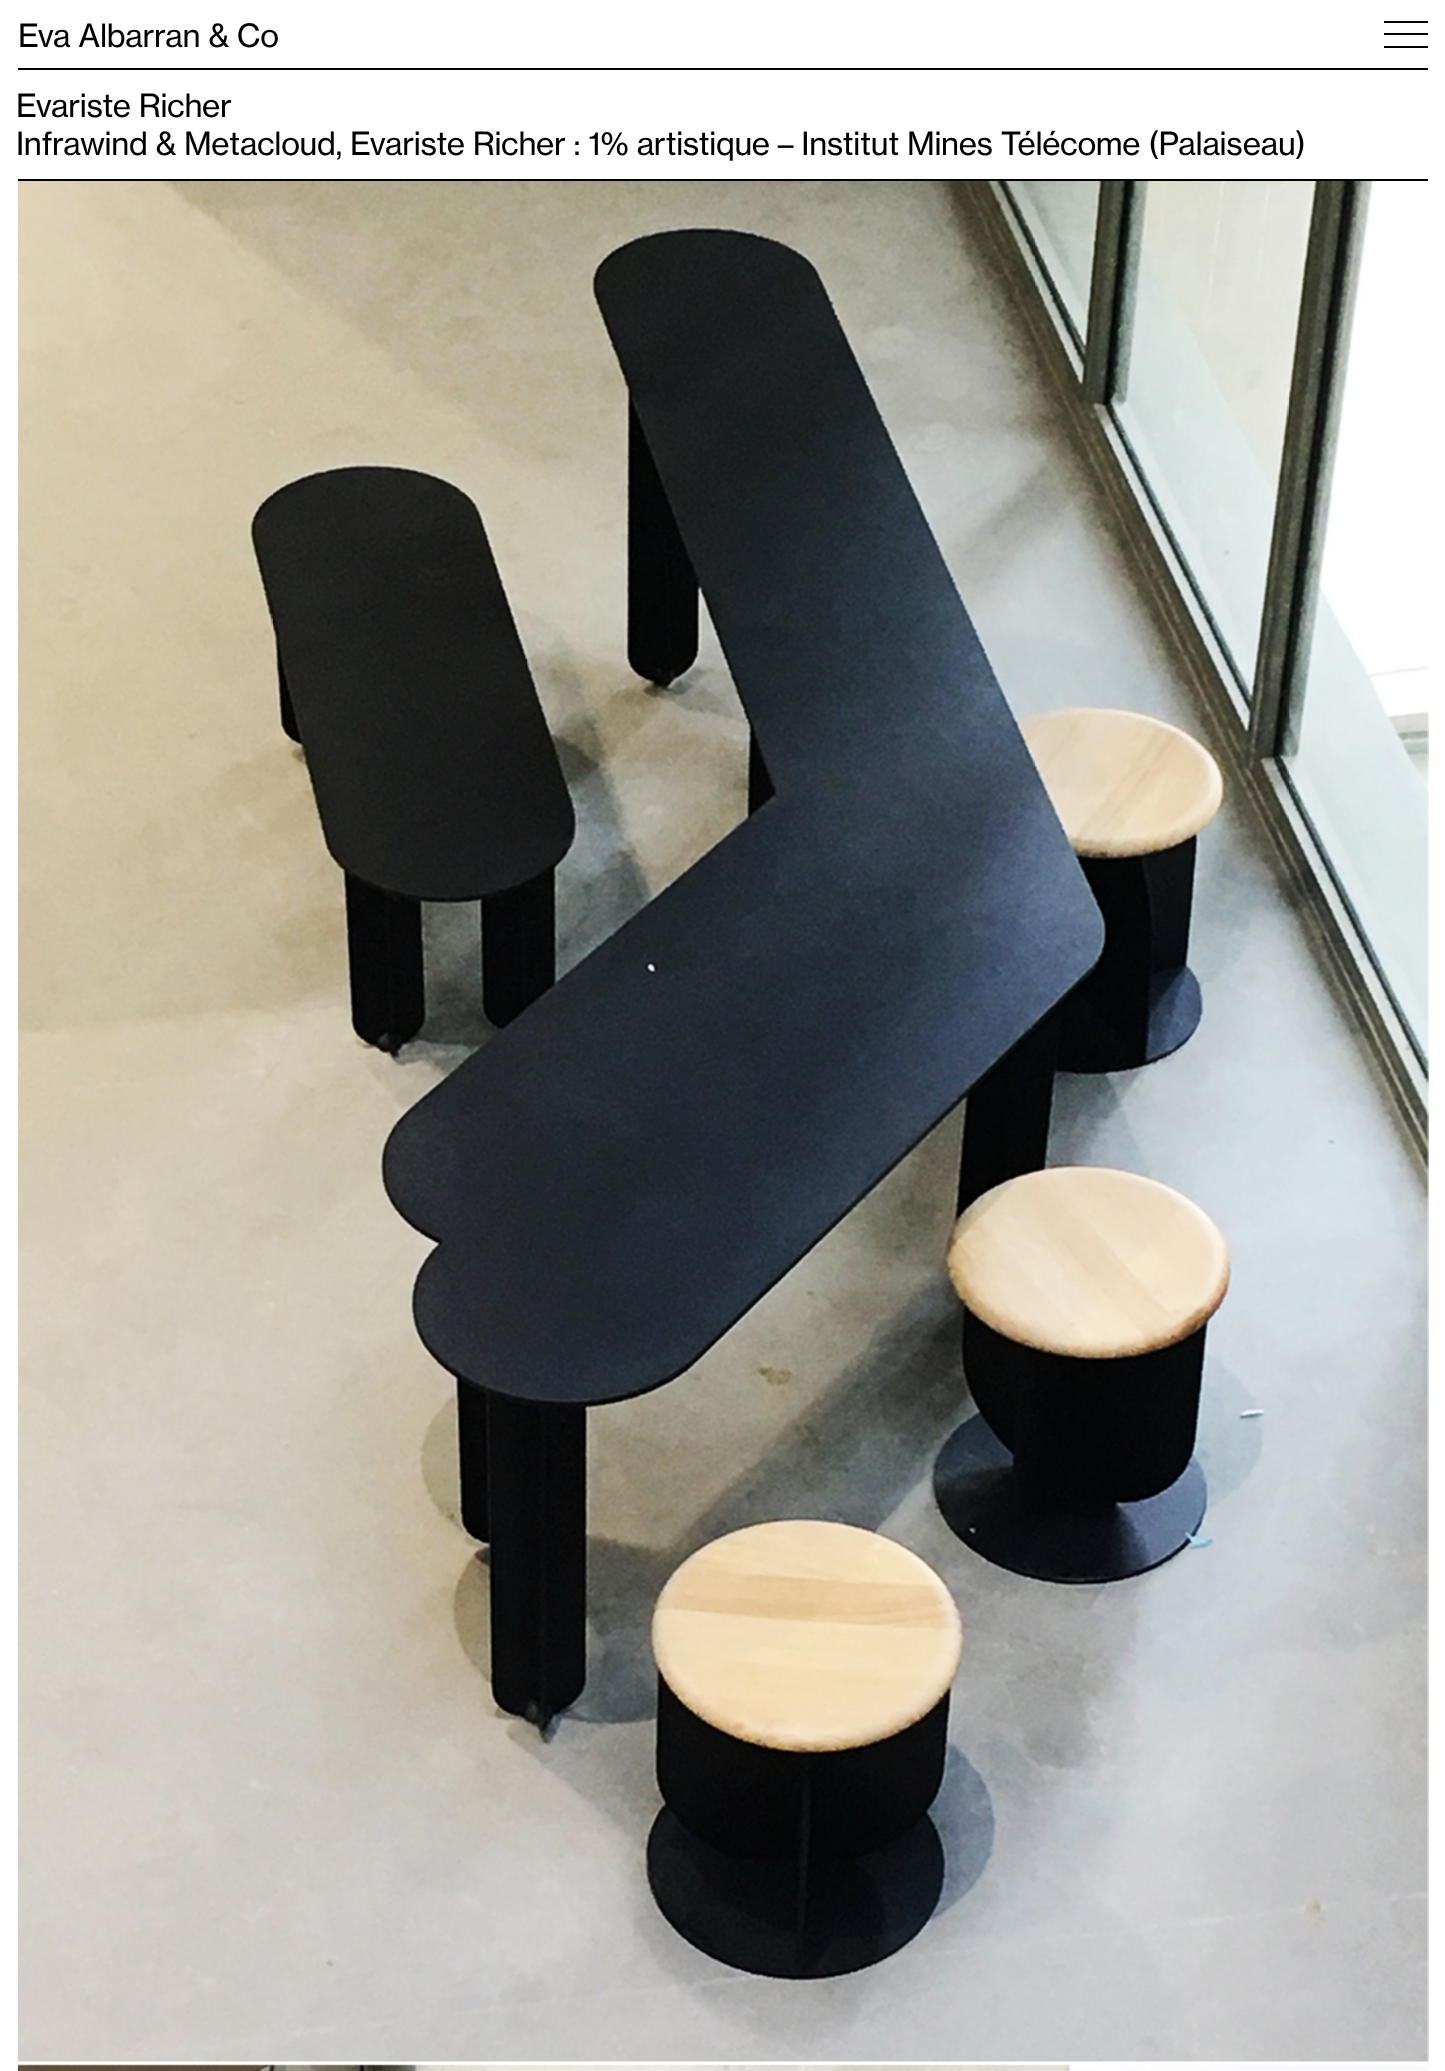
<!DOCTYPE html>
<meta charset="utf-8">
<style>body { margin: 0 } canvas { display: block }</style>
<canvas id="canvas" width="1445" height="2071"></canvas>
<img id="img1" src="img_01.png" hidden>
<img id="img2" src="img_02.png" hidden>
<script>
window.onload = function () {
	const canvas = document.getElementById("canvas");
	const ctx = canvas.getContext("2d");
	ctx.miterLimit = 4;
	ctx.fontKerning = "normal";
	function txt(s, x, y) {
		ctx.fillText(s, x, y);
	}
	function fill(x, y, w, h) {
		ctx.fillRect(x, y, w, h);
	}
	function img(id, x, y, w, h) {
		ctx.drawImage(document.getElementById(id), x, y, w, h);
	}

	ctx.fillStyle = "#FFFFFF";
	fill(0, 0, 1445, 2071);
	ctx.fillStyle = "#000000";
	fill(1384, 33, 44, 2);
	fill(1384, 21, 44, 2);
	fill(1384, 46, 44, 2);
	fill(18, 68, 1410, 2);
	img("img1", 18, 180, 1411, 1882);
	fill(18, 179, 1410, 2);
	img("img2", 18, 2064, 1410, 7);
	ctx.letterSpacing = "-0.32px";
	ctx.font = "31.5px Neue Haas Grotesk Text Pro";
	txt("Eva Albarran & Co", 18, 47);
	txt("Evariste Richer", 16, 117);
	txt("Infrawind & Metacloud, Evariste Richer : 1% artistique – Institut Mines Télécome (Palaiseau)", 16, 155);
};
</script>
